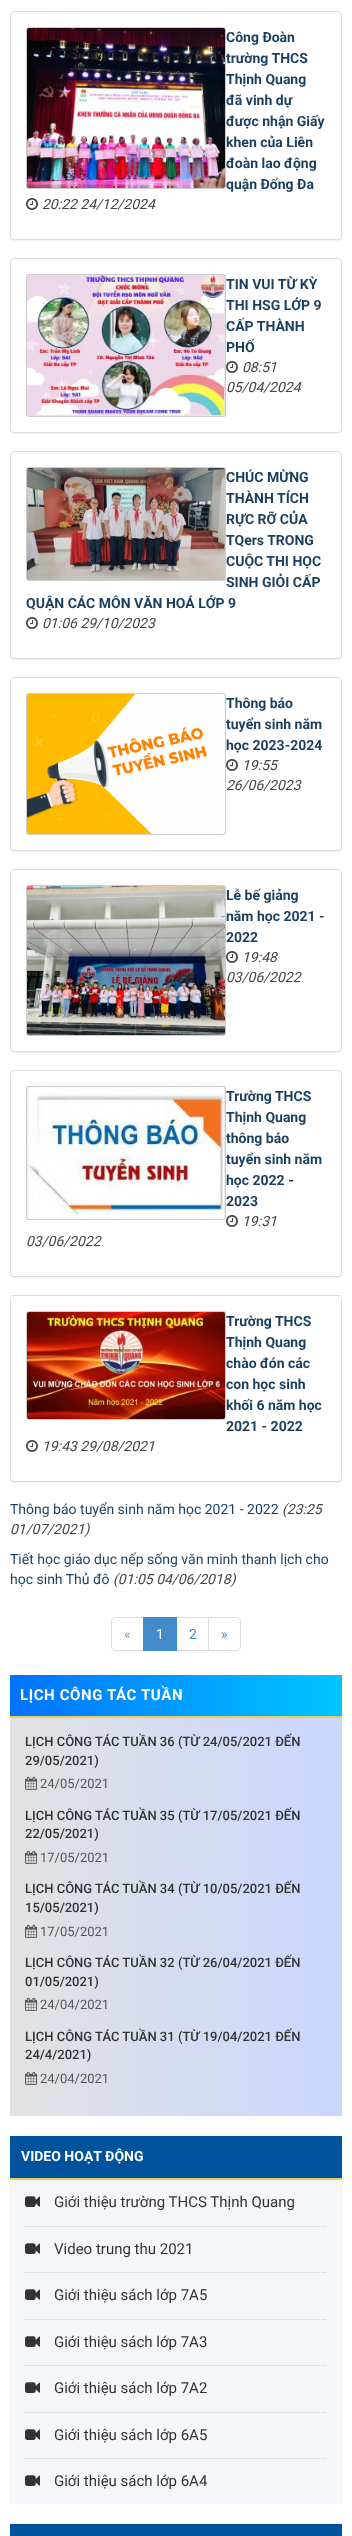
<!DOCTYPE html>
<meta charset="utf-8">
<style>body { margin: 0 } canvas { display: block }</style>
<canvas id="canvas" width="352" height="2536"></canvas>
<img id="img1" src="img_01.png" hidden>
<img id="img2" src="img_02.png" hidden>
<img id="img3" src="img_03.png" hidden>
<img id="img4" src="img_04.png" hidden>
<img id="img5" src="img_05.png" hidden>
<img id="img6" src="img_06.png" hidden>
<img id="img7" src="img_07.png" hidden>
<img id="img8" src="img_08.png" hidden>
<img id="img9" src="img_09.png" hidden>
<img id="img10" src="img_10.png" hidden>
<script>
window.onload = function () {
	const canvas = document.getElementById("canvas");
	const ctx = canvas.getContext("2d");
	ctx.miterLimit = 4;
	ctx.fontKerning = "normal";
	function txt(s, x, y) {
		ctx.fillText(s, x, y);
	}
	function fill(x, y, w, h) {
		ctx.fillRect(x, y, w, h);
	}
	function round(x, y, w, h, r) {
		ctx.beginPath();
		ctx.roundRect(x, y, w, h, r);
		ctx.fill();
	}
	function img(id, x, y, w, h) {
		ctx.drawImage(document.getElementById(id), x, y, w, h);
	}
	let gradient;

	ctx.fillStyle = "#FFFFFF";
	fill(0, 0, 352, 2536);
	ctx.fillStyle = "rgba(0, 0, 0, 0.05)";
	ctx.filter = "blur(0.5px)";
	ctx.beginPath();
	ctx.roundRect(10, 12, 332, 229, 4);
	ctx.fill();
	ctx.filter = "none";
	ctx.fillStyle = "#FFFFFF";
	ctx.beginPath();
	ctx.roundRect(10.5, 11.5, 331, 228, 3.5);
	ctx.fill();
	ctx.strokeStyle = "#DDDDDD";
	ctx.stroke();
	ctx.fillStyle = "#CCCCCC";
	round(26, 27, 200, 162, 3);
	img("img1", 27, 28, 198, 160);
	img("img2", 26, 198, 12, 12);
	ctx.fillStyle = "rgba(0, 0, 0, 0.05)";
	ctx.filter = "blur(0.5px)";
	ctx.beginPath();
	ctx.roundRect(10, 259, 332, 175, 4);
	ctx.fill();
	ctx.filter = "none";
	ctx.fillStyle = "#FFFFFF";
	ctx.beginPath();
	ctx.roundRect(10.5, 258.5, 331, 174, 3.5);
	ctx.fill();
	ctx.stroke();
	ctx.fillStyle = "#CCCCCC";
	round(26, 274, 200, 143, 3);
	img("img3", 27, 275, 198, 141);
	img("img2", 226, 361, 12, 12);
	ctx.fillStyle = "rgba(0, 0, 0, 0.05)";
	ctx.filter = "blur(0.5px)";
	ctx.beginPath();
	ctx.roundRect(10, 452, 332, 208, 4);
	ctx.fill();
	ctx.filter = "none";
	ctx.fillStyle = "#FFFFFF";
	ctx.beginPath();
	ctx.roundRect(10.5, 451.5, 331, 207, 3.5);
	ctx.fill();
	ctx.stroke();
	ctx.fillStyle = "#CCCCCC";
	round(26, 467, 200, 114, 3);
	img("img4", 27, 468, 198, 112);
	img("img2", 26, 617, 12, 12);
	ctx.fillStyle = "rgba(0, 0, 0, 0.05)";
	ctx.filter = "blur(0.5px)";
	ctx.beginPath();
	ctx.roundRect(10, 678, 332, 174, 4);
	ctx.fill();
	ctx.filter = "none";
	ctx.fillStyle = "#FFFFFF";
	ctx.beginPath();
	ctx.roundRect(10.5, 677.5, 331, 173, 3.5);
	ctx.fill();
	ctx.stroke();
	ctx.fillStyle = "#CCCCCC";
	round(26, 693, 200, 142, 3);
	img("img5", 27, 694, 198, 140);
	img("img2", 226, 759, 12, 12);
	ctx.fillStyle = "rgba(0, 0, 0, 0.05)";
	ctx.filter = "blur(0.5px)";
	ctx.beginPath();
	ctx.roundRect(10, 870, 332, 183, 4);
	ctx.fill();
	ctx.filter = "none";
	ctx.fillStyle = "#FFFFFF";
	ctx.beginPath();
	ctx.roundRect(10.5, 869.5, 331, 182, 3.5);
	ctx.fill();
	ctx.stroke();
	ctx.fillStyle = "#CCCCCC";
	round(26, 885, 200, 151, 3);
	img("img6", 27, 886, 198, 149);
	img("img2", 226, 951, 12, 12);
	ctx.fillStyle = "rgba(0, 0, 0, 0.05)";
	ctx.filter = "blur(0.5px)";
	ctx.beginPath();
	ctx.roundRect(10, 1071, 332, 207, 4);
	ctx.fill();
	ctx.filter = "none";
	ctx.fillStyle = "#FFFFFF";
	ctx.beginPath();
	ctx.roundRect(10.5, 1070.5, 331, 206, 3.5);
	ctx.fill();
	ctx.stroke();
	ctx.fillStyle = "#CCCCCC";
	round(26, 1086, 200, 134, 3);
	img("img7", 27, 1087, 198, 132);
	img("img2", 226, 1215, 12, 12);
	ctx.fillStyle = "rgba(0, 0, 0, 0.05)";
	ctx.filter = "blur(0.5px)";
	ctx.beginPath();
	ctx.roundRect(10, 1296, 332, 187, 4);
	ctx.fill();
	ctx.filter = "none";
	ctx.fillStyle = "#FFFFFF";
	ctx.beginPath();
	ctx.roundRect(10.5, 1295.5, 331, 186, 3.5);
	ctx.fill();
	ctx.stroke();
	ctx.fillStyle = "#CCCCCC";
	round(26, 1311, 200, 109, 3);
	img("img8", 27, 1312, 198, 107);
	img("img2", 26, 1440, 12, 12);
	ctx.beginPath();
	ctx.roundRect(111.5, 1617.5, 32, 33, [3.5, 0, 0, 3.5]);
	ctx.stroke();
	ctx.strokeRect(176.5, 1617.5, 32, 33);
	ctx.fillStyle = "#428BCA";
	fill(143, 1617, 34, 34);
	ctx.fillStyle = "#FFFFFF";
	ctx.beginPath();
	ctx.roundRect(208.5, 1617.5, 32, 33, [0, 3.5, 3.5, 0]);
	ctx.fill();
	ctx.stroke();
	gradient = ctx.createLinearGradient(10, 1896, 342, 1896);
	gradient.addColorStop(0, "#E2E2E2");
	gradient.addColorStop(1, "#C9D6FF");
	ctx.fillStyle = gradient;
	fill(10, 1718, 332, 398);
	gradient = ctx.createLinearGradient(10, 1696, 342, 1696);
	gradient.addColorStop(0, "#0072FF");
	gradient.addColorStop(1, "#00C6FF");
	ctx.fillStyle = gradient;
	fill(10, 1675, 332, 41);
	ctx.fillStyle = "#EDCC5D";
	fill(10, 1716, 332, 2);
	img("img9", 25, 1776, 13, 14);
	img("img9", 25, 1850, 13, 14);
	img("img9", 25, 1924, 13, 14);
	img("img9", 25, 1997, 13, 14);
	img("img9", 25, 2071, 13, 14);
	ctx.fillStyle = "#F4F6FA";
	fill(10, 2180, 332, 324);
	ctx.fillStyle = "#01529D";
	fill(10, 2136, 332, 42);
	ctx.fillStyle = "#EDCC5D";
	fill(10, 2178, 332, 2);
	ctx.beginPath();
	ctx.moveTo(25, 2226.5);
	ctx.lineTo(327, 2226.5);
	ctx.strokeStyle = "#D2D2D2";
	ctx.setLineDash([1, 1]);
	ctx.stroke();
	img("img10", 25, 2196, 15, 11);
	ctx.beginPath();
	ctx.moveTo(25, 2272.5);
	ctx.lineTo(327, 2272.5);
	ctx.stroke();
	img("img10", 25, 2243, 15, 11);
	ctx.beginPath();
	ctx.moveTo(25, 2319.5);
	ctx.lineTo(327, 2319.5);
	ctx.stroke();
	img("img10", 25, 2289, 15, 11);
	ctx.beginPath();
	ctx.moveTo(25, 2365.5);
	ctx.lineTo(327, 2365.5);
	ctx.stroke();
	img("img10", 25, 2336, 15, 11);
	ctx.beginPath();
	ctx.moveTo(25, 2412.5);
	ctx.lineTo(327, 2412.5);
	ctx.stroke();
	img("img10", 25, 2382, 15, 11);
	ctx.beginPath();
	ctx.moveTo(25, 2458.5);
	ctx.lineTo(327, 2458.5);
	ctx.stroke();
	img("img10", 25, 2429, 15, 11);
	img("img10", 25, 2475, 15, 11);
	ctx.fillStyle = "#01529D";
	fill(10, 2524, 332, 12);
	ctx.font = "bold 14px Roboto";
	ctx.fillStyle = "#1A3F5E";
	txt("Công Đoàn", 226, 42);
	txt("trường THCS", 226, 63);
	txt("Thịnh Quang", 226, 84);
	txt("đã vinh dự", 226, 105);
	txt("được nhận Giấy", 226, 126);
	txt("khen của Liên", 226, 147);
	txt("đoàn lao động", 226, 168);
	txt("quận Đống Đa", 226, 189);
	ctx.font = "italic 14px Roboto";
	ctx.fillStyle = "#444444";
	txt("20:22 24/12/2024", 42, 209);
	ctx.font = "bold 14px Roboto";
	ctx.fillStyle = "#1A3F5E";
	txt("TIN VUI TỪ KỲ", 226, 289);
	txt("THI HSG LỚP 9", 226, 310);
	txt("CẤP THÀNH", 226, 331);
	txt("PHỐ", 226, 352);
	ctx.font = "italic 14px Roboto";
	ctx.fillStyle = "#444444";
	txt("08:51", 242, 372);
	txt("05/04/2024", 226, 392);
	ctx.font = "bold 14px Roboto";
	ctx.fillStyle = "#1A3F5E";
	txt("CHÚC MỪNG", 226, 482);
	txt("THÀNH TÍCH", 226, 503);
	txt("RỰC RỠ CỦA", 226, 524);
	txt("TQers TRONG", 226, 545);
	txt("CUỘC THI HỌC", 226, 566);
	txt("SINH GIỎI CẤP", 226, 587);
	txt("QUẬN CÁC MÔN VĂN HOÁ LỚP 9", 26, 608);
	ctx.font = "italic 14px Roboto";
	ctx.fillStyle = "#444444";
	txt("01:06 29/10/2023", 42, 628);
	ctx.font = "bold 14px Roboto";
	ctx.fillStyle = "#1A3F5E";
	txt("Thông báo", 226, 708);
	txt("tuyển sinh năm", 226, 729);
	txt("học 2023-2024", 226, 750);
	ctx.font = "italic 14px Roboto";
	ctx.fillStyle = "#444444";
	txt("19:55", 242, 770);
	txt("26/06/2023", 226, 790);
	ctx.font = "bold 14px Roboto";
	ctx.fillStyle = "#1A3F5E";
	txt("Lễ bế giảng", 226, 900);
	txt("năm học 2021 -", 226, 921);
	txt("2022", 226, 942);
	ctx.font = "italic 14px Roboto";
	ctx.fillStyle = "#444444";
	txt("19:48", 242, 962);
	txt("03/06/2022", 226, 982);
	ctx.font = "bold 14px Roboto";
	ctx.fillStyle = "#1A3F5E";
	txt("Trường THCS", 226, 1101);
	txt("Thịnh Quang", 226, 1122);
	txt("thông báo", 226, 1143);
	txt("tuyển sinh năm", 226, 1164);
	txt("học 2022 -", 226, 1185);
	txt("2023", 226, 1206);
	ctx.font = "italic 14px Roboto";
	ctx.fillStyle = "#444444";
	txt("19:31", 242, 1226);
	txt("03/06/2022", 26, 1246);
	ctx.font = "bold 14px Roboto";
	ctx.fillStyle = "#1A3F5E";
	txt("Trường THCS", 226, 1326);
	txt("Thịnh Quang", 226, 1347);
	txt("chào đón các", 226, 1368);
	txt("con học sinh", 226, 1389);
	txt("khối 6 năm học", 226, 1410);
	txt("2021 - 2022", 226, 1431);
	ctx.font = "italic 14px Roboto";
	ctx.fillStyle = "#444444";
	txt("19:43 29/08/2021", 42, 1451);
	ctx.font = "14px Roboto";
	ctx.fillStyle = "#1A3F5E";
	txt("Thông báo tuyển sinh năm học 2021 - 2022", 10, 1514);
	ctx.font = "italic 14px Roboto";
	ctx.fillStyle = "#444444";
	txt("(23:25", 282, 1514);
	txt("01/07/2021)", 10, 1534);
	ctx.font = "14px Roboto";
	ctx.fillStyle = "#1A3F5E";
	txt("Tiết học giáo dục nếp sống văn minh thanh lịch cho", 10, 1564);
	txt("học sinh Thủ đô", 10, 1584);
	ctx.font = "italic 14px Roboto";
	ctx.fillStyle = "#444444";
	txt("(01:05 04/06/2018)", 113, 1584);
	ctx.font = "14px Roboto";
	ctx.fillStyle = "#999999";
	txt("«", 124, 1639);
	ctx.fillStyle = "#FFFFFF";
	txt("1", 156, 1639);
	ctx.fillStyle = "#428BCA";
	txt("2", 189, 1639);
	txt("»", 221, 1639);
	ctx.letterSpacing = "0.6px";
	ctx.font = "bold 15px Roboto";
	ctx.fillStyle = "#FFFFFF";
	txt("LỊCH CÔNG TÁC TUẦN", 20, 1700);
	ctx.letterSpacing = "0px";
	ctx.font = "500 13px Roboto";
	ctx.fillStyle = "#333333";
	txt("LỊCH CÔNG TÁC TUẦN 36 (TỪ 24/05/2021 ĐẾN", 25, 1746);
	txt("29/05/2021)", 25, 1765);
	ctx.font = "13px Roboto";
	ctx.fillStyle = "#555555";
	txt("24/05/2021", 40, 1788);
	ctx.font = "500 13px Roboto";
	ctx.fillStyle = "#333333";
	txt("LỊCH CÔNG TÁC TUẦN 35 (TỪ 17/05/2021 ĐẾN", 25, 1820);
	txt("22/05/2021)", 25, 1838);
	ctx.font = "13px Roboto";
	ctx.fillStyle = "#555555";
	txt("17/05/2021", 40, 1862);
	ctx.font = "500 13px Roboto";
	ctx.fillStyle = "#333333";
	txt("LỊCH CÔNG TÁC TUẦN 34 (TỪ 10/05/2021 ĐẾN", 25, 1893);
	txt("15/05/2021)", 25, 1912);
	ctx.font = "13px Roboto";
	ctx.fillStyle = "#555555";
	txt("17/05/2021", 40, 1936);
	ctx.font = "500 13px Roboto";
	ctx.fillStyle = "#333333";
	txt("LỊCH CÔNG TÁC TUẦN 32 (TỪ 26/04/2021 ĐẾN", 25, 1967);
	txt("01/05/2021)", 25, 1986);
	ctx.font = "13px Roboto";
	ctx.fillStyle = "#555555";
	txt("24/04/2021", 40, 2009);
	ctx.font = "500 13px Roboto";
	ctx.fillStyle = "#333333";
	txt("LỊCH CÔNG TÁC TUẦN 31 (TỪ 19/04/2021 ĐẾN", 25, 2041);
	txt("24/4/2021)", 25, 2059);
	ctx.font = "13px Roboto";
	ctx.fillStyle = "#555555";
	txt("24/04/2021", 40, 2083);
	ctx.font = "bold 14px Roboto";
	ctx.fillStyle = "#FFFFFF";
	txt("VIDEO HOẠT ĐỘNG", 21, 2161);
	ctx.font = "15px Roboto";
	ctx.fillStyle = "#333333";
	txt("Giới thiệu trường THCS Thịnh Quang", 54, 2207);
	txt("Video trung thu 2021", 54, 2254);
	txt("Giới thiệu sách lớp 7A5", 54, 2300);
	txt("Giới thiệu sách lớp 7A3", 54, 2347);
	txt("Giới thiệu sách lớp 7A2", 54, 2393);
	txt("Giới thiệu sách lớp 6A5", 54, 2440);
	txt("Giới thiệu sách lớp 6A4", 54, 2486);
};
</script>
